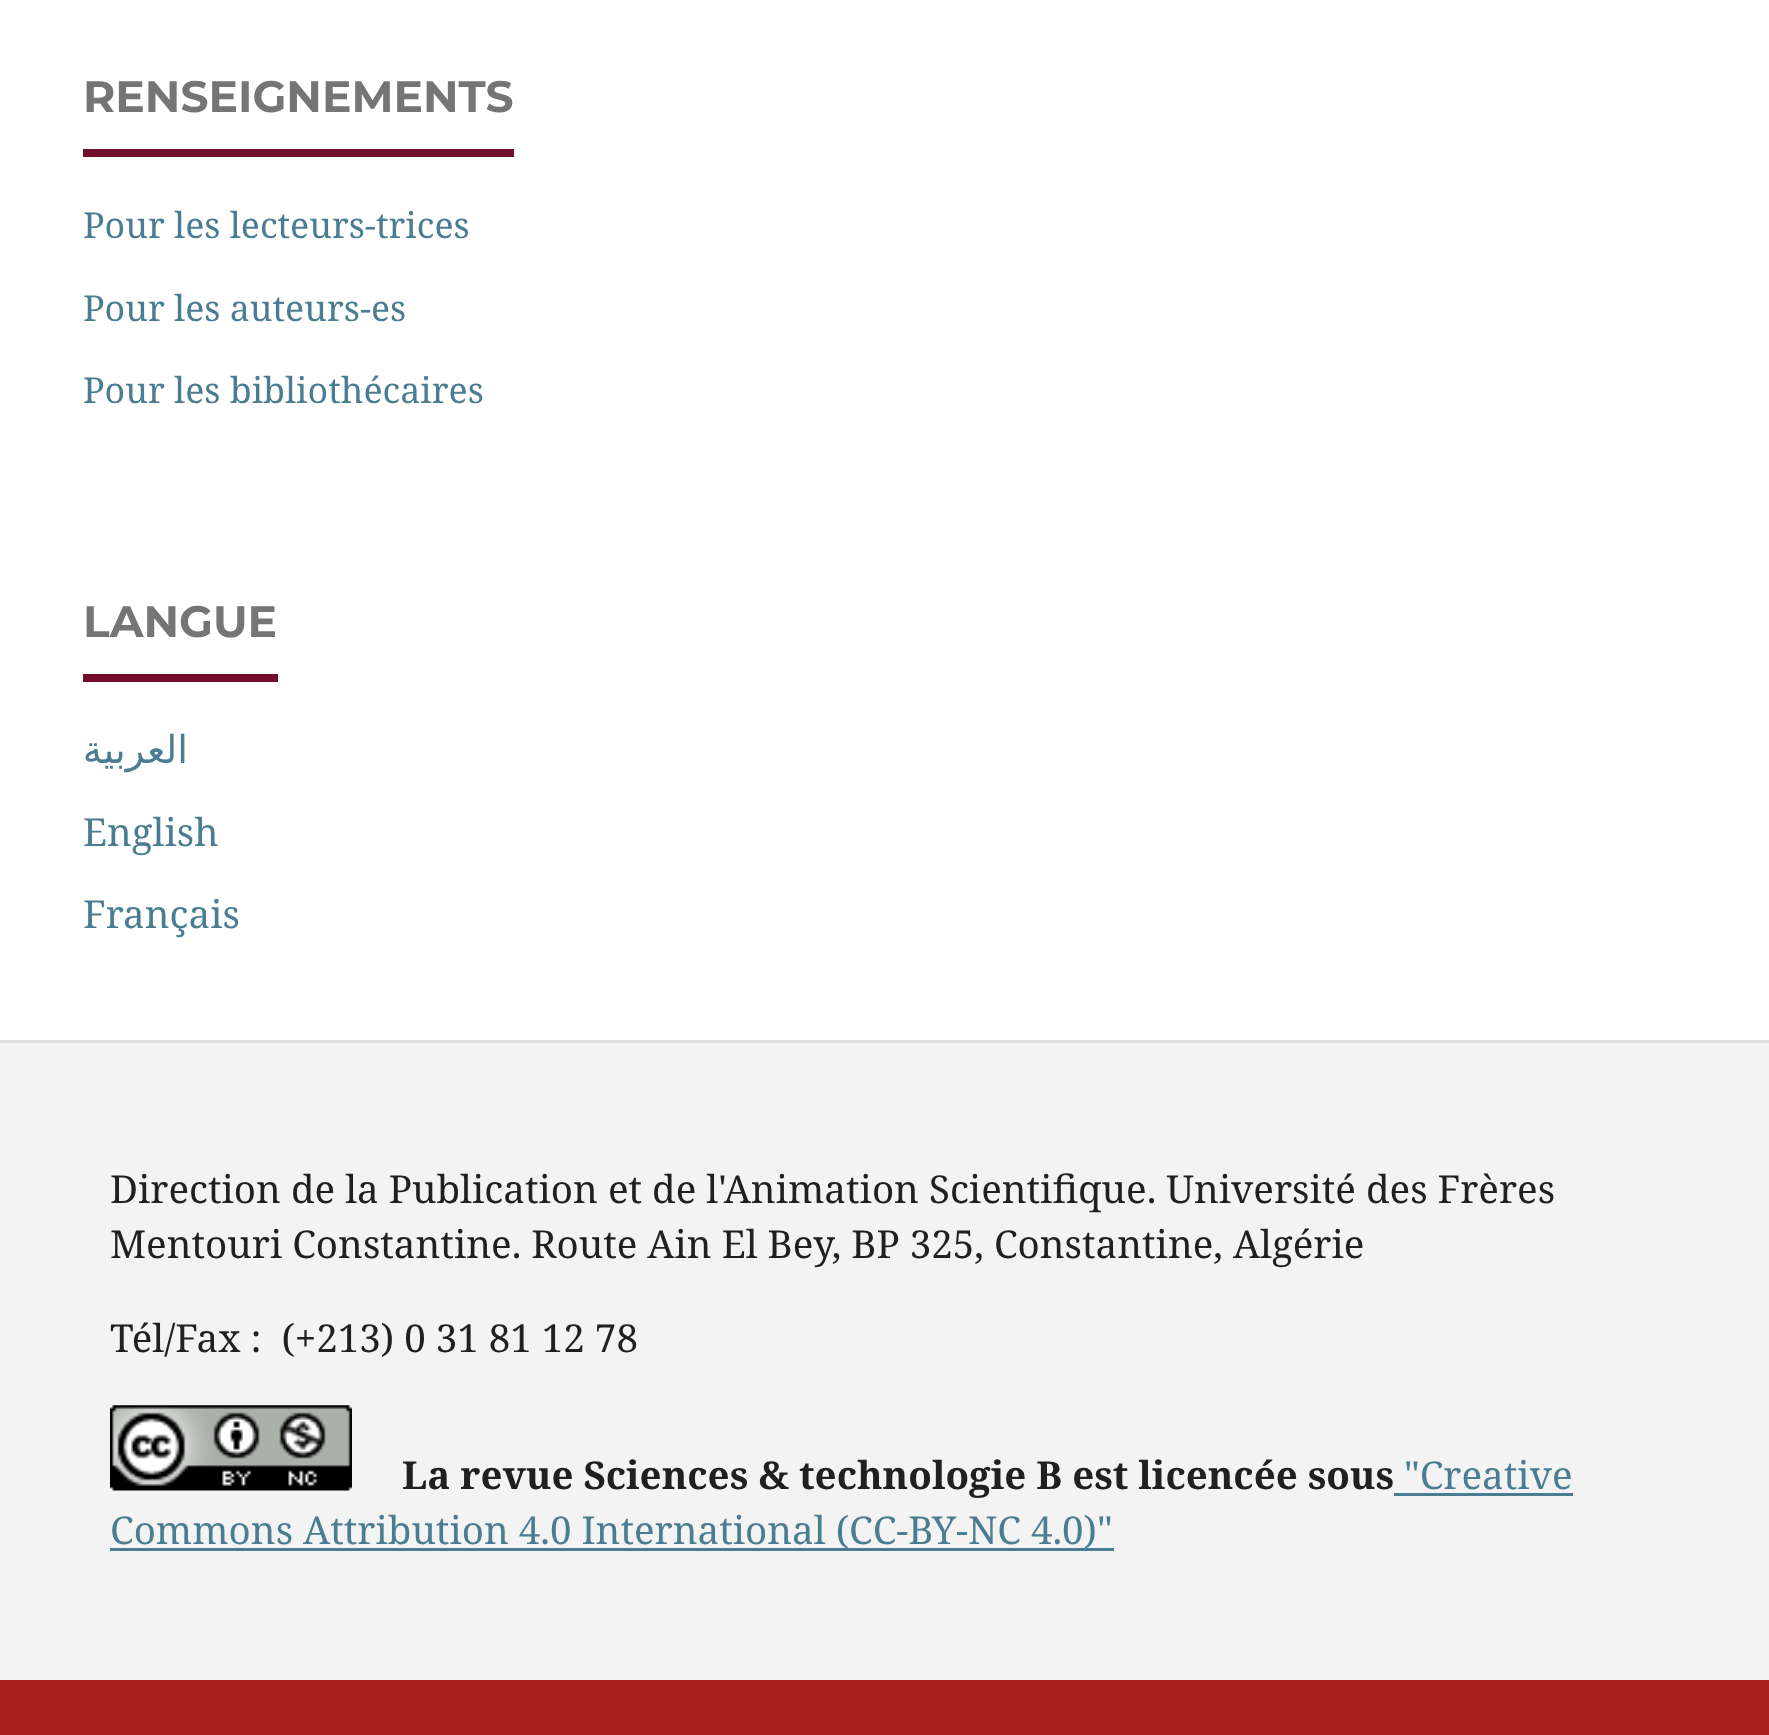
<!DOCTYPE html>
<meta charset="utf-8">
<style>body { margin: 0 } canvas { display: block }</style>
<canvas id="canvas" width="1769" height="1735"></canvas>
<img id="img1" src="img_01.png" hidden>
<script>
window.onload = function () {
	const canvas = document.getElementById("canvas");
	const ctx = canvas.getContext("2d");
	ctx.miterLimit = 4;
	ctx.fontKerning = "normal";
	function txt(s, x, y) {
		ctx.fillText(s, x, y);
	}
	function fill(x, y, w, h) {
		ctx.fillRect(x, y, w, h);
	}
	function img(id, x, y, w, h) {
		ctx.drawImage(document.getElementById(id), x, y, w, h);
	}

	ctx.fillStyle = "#FFFFFF";
	fill(0, 0, 1769, 1735);
	ctx.fillStyle = "#720E2C";
	fill(83, 149, 431, 8);
	fill(83, 674, 195, 8);
	ctx.fillStyle = "#F3F3F3";
	fill(0, 1043, 1769, 637);
	ctx.fillStyle = "#DDDDDD";
	fill(0, 1040, 1769, 3);
	ctx.fillStyle = "#A81E1C";
	fill(0, 1680, 1769, 55);
	img("img1", 110, 1405, 242, 86);
	ctx.fillStyle = "#4B7D92";
	fill(1394, 1493, 179, 3);
	fill(110, 1548, 1004, 3);
	ctx.font = "bold 44px Montserrat";
	ctx.fillStyle = "#757575";
	txt("RENSEIGNEMENTS", 83, 112);
	ctx.font = "35.75px Noto Serif";
	ctx.fillStyle = "#4B7D92";
	txt("Pour les lecteurs-trices", 83, 238);
	txt("Pour les auteurs-es", 83, 321);
	txt("Pour les bibliothécaires", 83, 403);
	ctx.font = "bold 44px Montserrat";
	ctx.fillStyle = "#757575";
	txt("LANGUE", 83, 637);
	ctx.direction = "rtl";
	ctx.font = "38.5px DejaVu Sans";
	ctx.fillStyle = "#4B7D92";
	txt("العربية", 188, 763);
	ctx.direction = "ltr";
	ctx.font = "38.5px Noto Serif";
	txt("English", 83, 846);
	txt("Français", 83, 928);
	ctx.fillStyle = "#202020";
	txt("Direction de la Publication et de l'Animation Scientifique. Université des Frères", 110, 1203);
	txt("Mentouri Constantine. Route Ain El Bey, BP 325, Constantine, Algérie", 110, 1258);
	txt("Tél/Fax :  (+213) 0 31 81 12 78", 110, 1352);
	ctx.font = "bold 38.5px Noto Serif";
	txt("La revue Sciences & technologie B est licencée sous", 402, 1489);
	ctx.font = "38.5px Noto Serif";
	ctx.fillStyle = "#4B7D92";
	txt("\"Creative", 1404, 1489);
	txt("Commons Attribution 4.0 International (CC-BY-NC 4.0)\"", 110, 1544);
};
</script>
